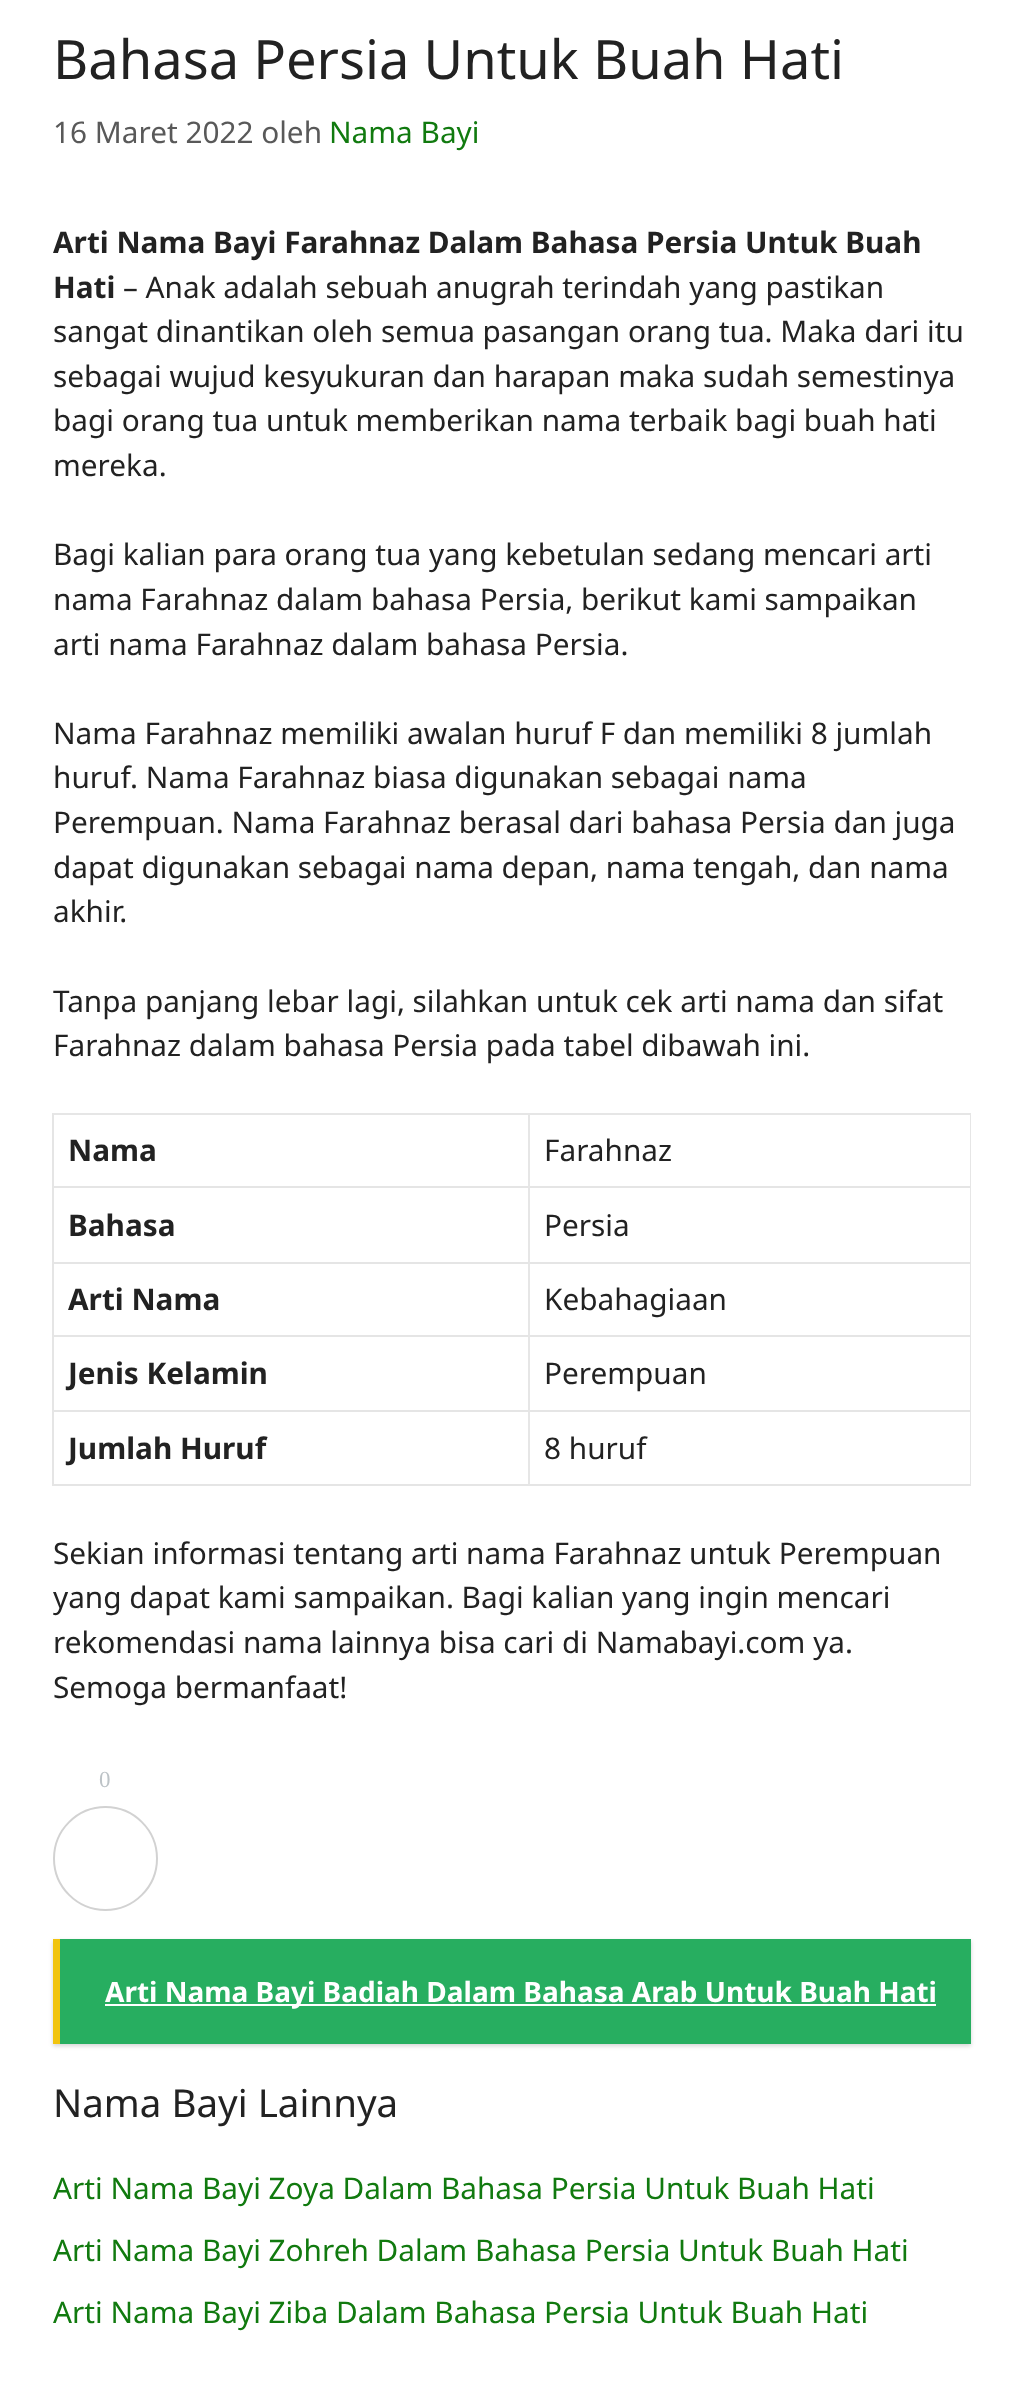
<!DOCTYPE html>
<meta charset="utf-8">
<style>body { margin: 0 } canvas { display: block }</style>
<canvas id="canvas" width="1023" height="2396"></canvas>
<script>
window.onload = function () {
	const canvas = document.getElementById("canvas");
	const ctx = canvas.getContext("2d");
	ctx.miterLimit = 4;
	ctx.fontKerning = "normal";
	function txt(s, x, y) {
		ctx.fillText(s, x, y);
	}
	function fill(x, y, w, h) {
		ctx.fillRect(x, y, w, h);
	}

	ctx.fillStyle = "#FFFFFF";
	fill(0, 0, 1023, 2396);
	ctx.fillStyle = "#E6E6E6";
	ctx.beginPath();
	ctx.moveTo(52, 1113);
	ctx.lineTo(971, 1113);
	ctx.lineTo(971, 1115);
	ctx.lineTo(54, 1115);
	ctx.closePath();
	ctx.fill();
	ctx.fillStyle = "rgba(0, 0, 0, 0.1)";
	ctx.beginPath();
	ctx.moveTo(52, 1486);
	ctx.lineTo(52, 1113);
	ctx.lineTo(54, 1115);
	ctx.lineTo(54, 1486);
	ctx.closePath();
	ctx.fill();
	ctx.fillStyle = "#E6E6E6";
	ctx.beginPath();
	ctx.moveTo(530, 1115);
	ctx.lineTo(530, 1188);
	ctx.lineTo(528, 1186);
	ctx.lineTo(528, 1115);
	ctx.closePath();
	ctx.fill();
	ctx.fillStyle = "rgba(0, 0, 0, 0.1)";
	ctx.beginPath();
	ctx.moveTo(530, 1188);
	ctx.lineTo(54, 1188);
	ctx.lineTo(54, 1186);
	ctx.lineTo(528, 1186);
	ctx.closePath();
	ctx.fill();
	ctx.fillStyle = "#E6E6E6";
	ctx.beginPath();
	ctx.moveTo(971, 1115);
	ctx.lineTo(971, 1188);
	ctx.lineTo(970, 1186);
	ctx.lineTo(970, 1115);
	ctx.closePath();
	ctx.fill();
	ctx.fillStyle = "rgba(0, 0, 0, 0.1)";
	ctx.beginPath();
	ctx.moveTo(971, 1188);
	ctx.lineTo(530, 1188);
	ctx.lineTo(530, 1186);
	ctx.lineTo(970, 1186);
	ctx.closePath();
	ctx.fill();
	ctx.fillStyle = "#E6E6E6";
	ctx.beginPath();
	ctx.moveTo(530, 1188);
	ctx.lineTo(530, 1264);
	ctx.lineTo(528, 1262);
	ctx.lineTo(528, 1188);
	ctx.closePath();
	ctx.fill();
	ctx.fillStyle = "rgba(0, 0, 0, 0.1)";
	ctx.beginPath();
	ctx.moveTo(530, 1264);
	ctx.lineTo(54, 1264);
	ctx.lineTo(54, 1262);
	ctx.lineTo(528, 1262);
	ctx.closePath();
	ctx.fill();
	ctx.fillStyle = "#E6E6E6";
	ctx.beginPath();
	ctx.moveTo(971, 1188);
	ctx.lineTo(971, 1264);
	ctx.lineTo(970, 1262);
	ctx.lineTo(970, 1188);
	ctx.closePath();
	ctx.fill();
	ctx.fillStyle = "rgba(0, 0, 0, 0.1)";
	ctx.beginPath();
	ctx.moveTo(971, 1264);
	ctx.lineTo(530, 1264);
	ctx.lineTo(530, 1262);
	ctx.lineTo(970, 1262);
	ctx.closePath();
	ctx.fill();
	ctx.fillStyle = "#E6E6E6";
	ctx.beginPath();
	ctx.moveTo(530, 1264);
	ctx.lineTo(530, 1337);
	ctx.lineTo(528, 1335);
	ctx.lineTo(528, 1264);
	ctx.closePath();
	ctx.fill();
	ctx.fillStyle = "rgba(0, 0, 0, 0.1)";
	ctx.beginPath();
	ctx.moveTo(530, 1337);
	ctx.lineTo(54, 1337);
	ctx.lineTo(54, 1335);
	ctx.lineTo(528, 1335);
	ctx.closePath();
	ctx.fill();
	ctx.fillStyle = "#E6E6E6";
	ctx.beginPath();
	ctx.moveTo(971, 1264);
	ctx.lineTo(971, 1337);
	ctx.lineTo(970, 1335);
	ctx.lineTo(970, 1264);
	ctx.closePath();
	ctx.fill();
	ctx.fillStyle = "rgba(0, 0, 0, 0.1)";
	ctx.beginPath();
	ctx.moveTo(971, 1337);
	ctx.lineTo(530, 1337);
	ctx.lineTo(530, 1335);
	ctx.lineTo(970, 1335);
	ctx.closePath();
	ctx.fill();
	ctx.fillStyle = "#E6E6E6";
	ctx.beginPath();
	ctx.moveTo(530, 1337);
	ctx.lineTo(530, 1412);
	ctx.lineTo(528, 1410);
	ctx.lineTo(528, 1337);
	ctx.closePath();
	ctx.fill();
	ctx.fillStyle = "rgba(0, 0, 0, 0.1)";
	ctx.beginPath();
	ctx.moveTo(530, 1412);
	ctx.lineTo(54, 1412);
	ctx.lineTo(54, 1410);
	ctx.lineTo(528, 1410);
	ctx.closePath();
	ctx.fill();
	ctx.fillStyle = "#E6E6E6";
	ctx.beginPath();
	ctx.moveTo(971, 1337);
	ctx.lineTo(971, 1412);
	ctx.lineTo(970, 1410);
	ctx.lineTo(970, 1337);
	ctx.closePath();
	ctx.fill();
	ctx.fillStyle = "rgba(0, 0, 0, 0.1)";
	ctx.beginPath();
	ctx.moveTo(971, 1412);
	ctx.lineTo(530, 1412);
	ctx.lineTo(530, 1410);
	ctx.lineTo(970, 1410);
	ctx.closePath();
	ctx.fill();
	ctx.fillStyle = "#E6E6E6";
	ctx.beginPath();
	ctx.moveTo(530, 1412);
	ctx.lineTo(530, 1486);
	ctx.lineTo(528, 1484);
	ctx.lineTo(528, 1412);
	ctx.closePath();
	ctx.fill();
	ctx.fillStyle = "rgba(0, 0, 0, 0.1)";
	ctx.beginPath();
	ctx.moveTo(530, 1486);
	ctx.lineTo(54, 1486);
	ctx.lineTo(54, 1484);
	ctx.lineTo(528, 1484);
	ctx.closePath();
	ctx.fill();
	ctx.fillStyle = "#E6E6E6";
	ctx.beginPath();
	ctx.moveTo(971, 1412);
	ctx.lineTo(971, 1486);
	ctx.lineTo(970, 1484);
	ctx.lineTo(970, 1412);
	ctx.closePath();
	ctx.fill();
	ctx.fillStyle = "rgba(0, 0, 0, 0.1)";
	ctx.beginPath();
	ctx.moveTo(971, 1486);
	ctx.lineTo(530, 1486);
	ctx.lineTo(530, 1484);
	ctx.lineTo(970, 1484);
	ctx.closePath();
	ctx.fill();
	ctx.beginPath();
	ctx.arc(105.5, 1858.5, 51.5, 0, Math.PI * 2);
	ctx.strokeStyle = "#D2D2D2";
	ctx.lineWidth = 2;
	ctx.stroke();
	ctx.fillStyle = "rgba(0, 0, 0, 0.17)";
	ctx.filter = "blur(2px)";
	ctx.beginPath();
	ctx.rect(53, 1941, 918, 105);
	ctx.fill();
	ctx.filter = "none";
	ctx.fillStyle = "#27AE60";
	fill(60, 1939, 911, 105);
	ctx.fillStyle = "#F1C40F";
	fill(53, 1939, 7, 105);
	ctx.fillStyle = "#FFFFFF";
	fill(105, 2004, 831, 2);
	ctx.font = "54.25px Noto Sans";
	ctx.fillStyle = "#222222";
	txt("Bahasa Persia Untuk Buah Hati", 53, 79);
	ctx.font = "29.75px Noto Sans";
	ctx.fillStyle = "#595959";
	txt("16 Maret 2022 oleh", 53, 143);
	ctx.fillStyle = "#117A0F";
	txt("Nama Bayi", 329, 143);
	ctx.font = "bold 29.75px Noto Sans";
	ctx.fillStyle = "#222222";
	txt("Arti Nama Bayi Farahnaz Dalam Bahasa Persia Untuk Buah", 53, 253);
	txt("Hati", 53, 298);
	ctx.font = "29.75px Noto Sans";
	txt("– Anak adalah sebuah anugrah terindah yang pastikan", 123, 298);
	txt("sangat dinantikan oleh semua pasangan orang tua. Maka dari itu", 53, 342);
	txt("sebagai wujud kesyukuran dan harapan maka sudah semestinya", 53, 387);
	txt("bagi orang tua untuk memberikan nama terbaik bagi buah hati", 53, 431);
	txt("mereka.", 53, 476);
	txt("Bagi kalian para orang tua yang kebetulan sedang mencari arti", 53, 565);
	txt("nama Farahnaz dalam bahasa Persia, berikut kami sampaikan", 53, 610);
	txt("arti nama Farahnaz dalam bahasa Persia.", 53, 655);
	txt("Nama Farahnaz memiliki awalan huruf F dan memiliki 8 jumlah", 53, 744);
	txt("huruf. Nama Farahnaz biasa digunakan sebagai nama", 53, 788);
	txt("Perempuan. Nama Farahnaz berasal dari bahasa Persia dan juga", 53, 833);
	txt("dapat digunakan sebagai nama depan, nama tengah, dan nama", 53, 878);
	txt("akhir.", 53, 922);
	txt("Tanpa panjang lebar lagi, silahkan untuk cek arti nama dan sifat", 53, 1012);
	txt("Farahnaz dalam bahasa Persia pada tabel dibawah ini.", 53, 1056);
	ctx.font = "bold 29.75px Noto Sans";
	txt("Nama", 68, 1161);
	ctx.font = "29.75px Noto Sans";
	txt("Farahnaz", 544, 1161);
	ctx.font = "bold 29.75px Noto Sans";
	txt("Bahasa", 68, 1236);
	ctx.font = "29.75px Noto Sans";
	txt("Persia", 544, 1236);
	ctx.font = "bold 29.75px Noto Sans";
	txt("Arti Nama", 68, 1310);
	ctx.font = "29.75px Noto Sans";
	txt("Kebahagiaan", 544, 1310);
	ctx.font = "bold 29.75px Noto Sans";
	txt("Jenis Kelamin", 68, 1384);
	ctx.font = "29.75px Noto Sans";
	txt("Perempuan", 544, 1384);
	ctx.font = "bold 29.75px Noto Sans";
	txt("Jumlah Huruf", 68, 1459);
	ctx.font = "29.75px Noto Sans";
	txt("8 huruf", 544, 1459);
	txt("Sekian informasi tentang arti nama Farahnaz untuk Perempuan", 53, 1564);
	txt("yang dapat kami sampaikan. Bagi kalian yang ingin mencari", 53, 1608);
	txt("rekomendasi nama lainnya bisa cari di Namabayi.com ya.", 53, 1653);
	txt("Semoga bermanfaat!", 53, 1698);
	ctx.font = "23px Liberation Serif";
	ctx.fillStyle = "#BDC3C7";
	txt("0", 99, 1787);
	ctx.font = "bold 28px Noto Sans";
	ctx.fillStyle = "#FFFFFF";
	txt("Arti Nama Bayi Badiah Dalam Bahasa Arab Untuk Buah Hati", 105, 2002);
	ctx.font = "38.5px Noto Sans";
	ctx.fillStyle = "#222222";
	txt("Nama Bayi Lainnya", 53, 2117);
	ctx.font = "29.75px Noto Sans";
	ctx.fillStyle = "#117A0F";
	txt("Arti Nama Bayi Zoya Dalam Bahasa Persia Untuk Buah Hati", 53, 2199);
	txt("Arti Nama Bayi Zohreh Dalam Bahasa Persia Untuk Buah Hati", 53, 2261);
	txt("Arti Nama Bayi Ziba Dalam Bahasa Persia Untuk Buah Hati", 53, 2323);
};
</script>
